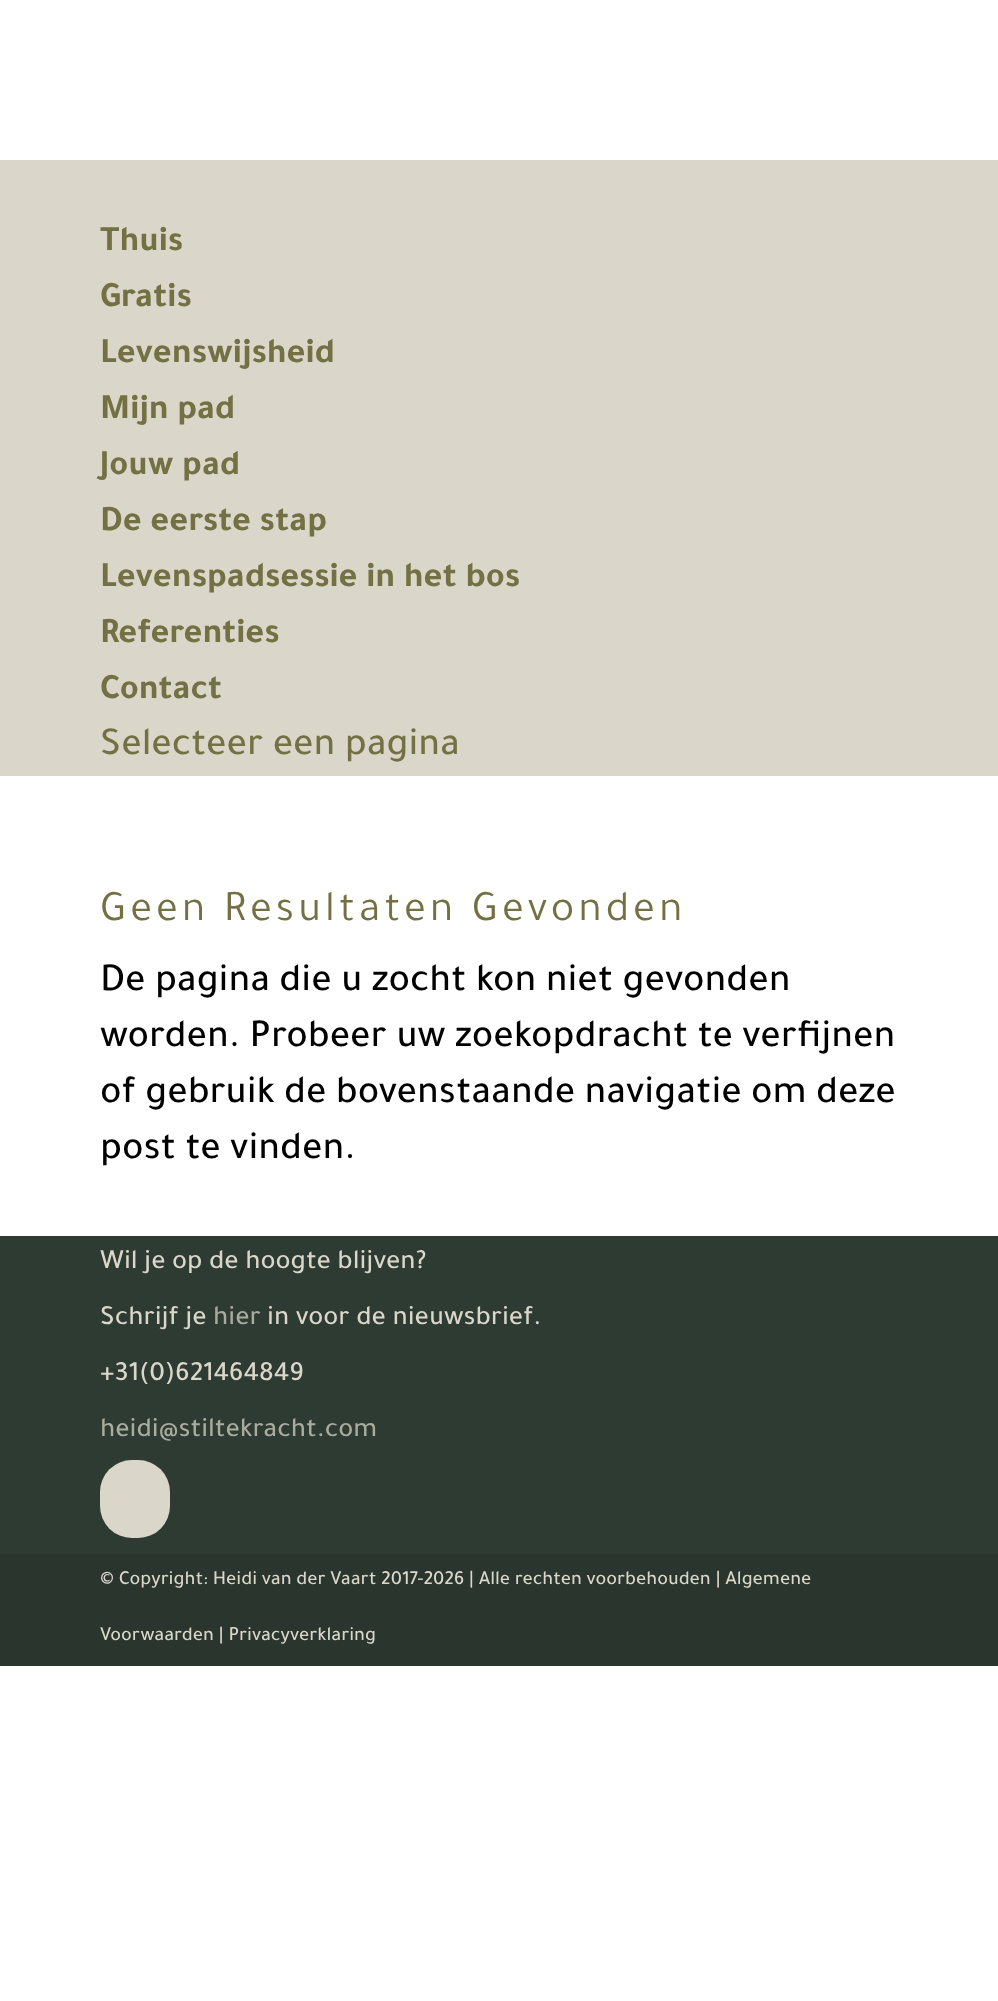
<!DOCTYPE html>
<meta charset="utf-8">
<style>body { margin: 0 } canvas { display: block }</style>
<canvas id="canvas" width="998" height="2001"></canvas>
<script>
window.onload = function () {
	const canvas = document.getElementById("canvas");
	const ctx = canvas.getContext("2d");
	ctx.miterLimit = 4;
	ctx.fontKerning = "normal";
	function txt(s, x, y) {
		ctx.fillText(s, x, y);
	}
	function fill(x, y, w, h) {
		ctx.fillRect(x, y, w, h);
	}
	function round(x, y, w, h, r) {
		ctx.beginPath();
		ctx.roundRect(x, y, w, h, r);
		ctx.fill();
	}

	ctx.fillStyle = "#FFFFFF";
	fill(0, 0, 998, 2001);
	ctx.fillStyle = "#DAD7CA";
	fill(0, 160, 998, 616);
	ctx.fillStyle = "#2E3B32";
	fill(0, 1236, 998, 318);
	ctx.fillStyle = "#DAD7CA";
	round(100, 1460, 70, 78, 32);
	ctx.fillStyle = "#29352D";
	fill(0, 1554, 998, 112);
	ctx.font = "bold 36px Tajawal";
	ctx.fillStyle = "#737144";
	txt("Thuis", 100, 250);
	txt("Gratis", 100, 306);
	txt("Levenswijsheid", 100, 362);
	txt("Mijn pad", 100, 418);
	txt("Jouw pad", 100, 474);
	txt("De eerste stap", 100, 530);
	txt("Levenspadsessie in het bos", 100, 586);
	txt("Referenties", 100, 642);
	txt("Contact", 100, 698);
	ctx.font = "500 40px Tajawal";
	txt("Selecteer een pagina", 100, 754);
	ctx.letterSpacing = "4px";
	ctx.font = "44px Tajawal";
	txt("Geen Resultaten Gevonden", 100, 920);
	ctx.letterSpacing = "0px";
	ctx.font = "500 40px Tajawal";
	ctx.fillStyle = "#000000";
	txt("De pagina die u zocht kon niet gevonden", 100, 990);
	txt("worden. Probeer uw zoekopdracht te verfijnen", 100, 1046);
	txt("of gebruik de bovenstaande navigatie om deze", 100, 1102);
	txt("post te vinden.", 100, 1158);
	ctx.font = "500 28px Tajawal";
	ctx.fillStyle = "#DAD7CA";
	txt("Wil je op de hoogte blijven?", 100, 1268);
	txt("Schrijf je", 100, 1324);
	ctx.fillStyle = "#AAAB9F";
	txt("hier", 213, 1324);
	ctx.fillStyle = "#DAD7CA";
	txt("in voor de nieuwsbrief.", 267, 1324);
	txt("+31(0)621464849", 100, 1380);
	ctx.fillStyle = "#AAAB9F";
	txt("heidi@stiltekracht.com", 100, 1436);
	ctx.font = "500 20px Tajawal";
	ctx.fillStyle = "#DAD7CA";
	txt("© Copyright: Heidi van der Vaart 2017-2026 | Alle rechten voorbehouden | Algemene", 100, 1584);
	txt("Voorwaarden | Privacyverklaring", 100, 1640);
};
</script>
